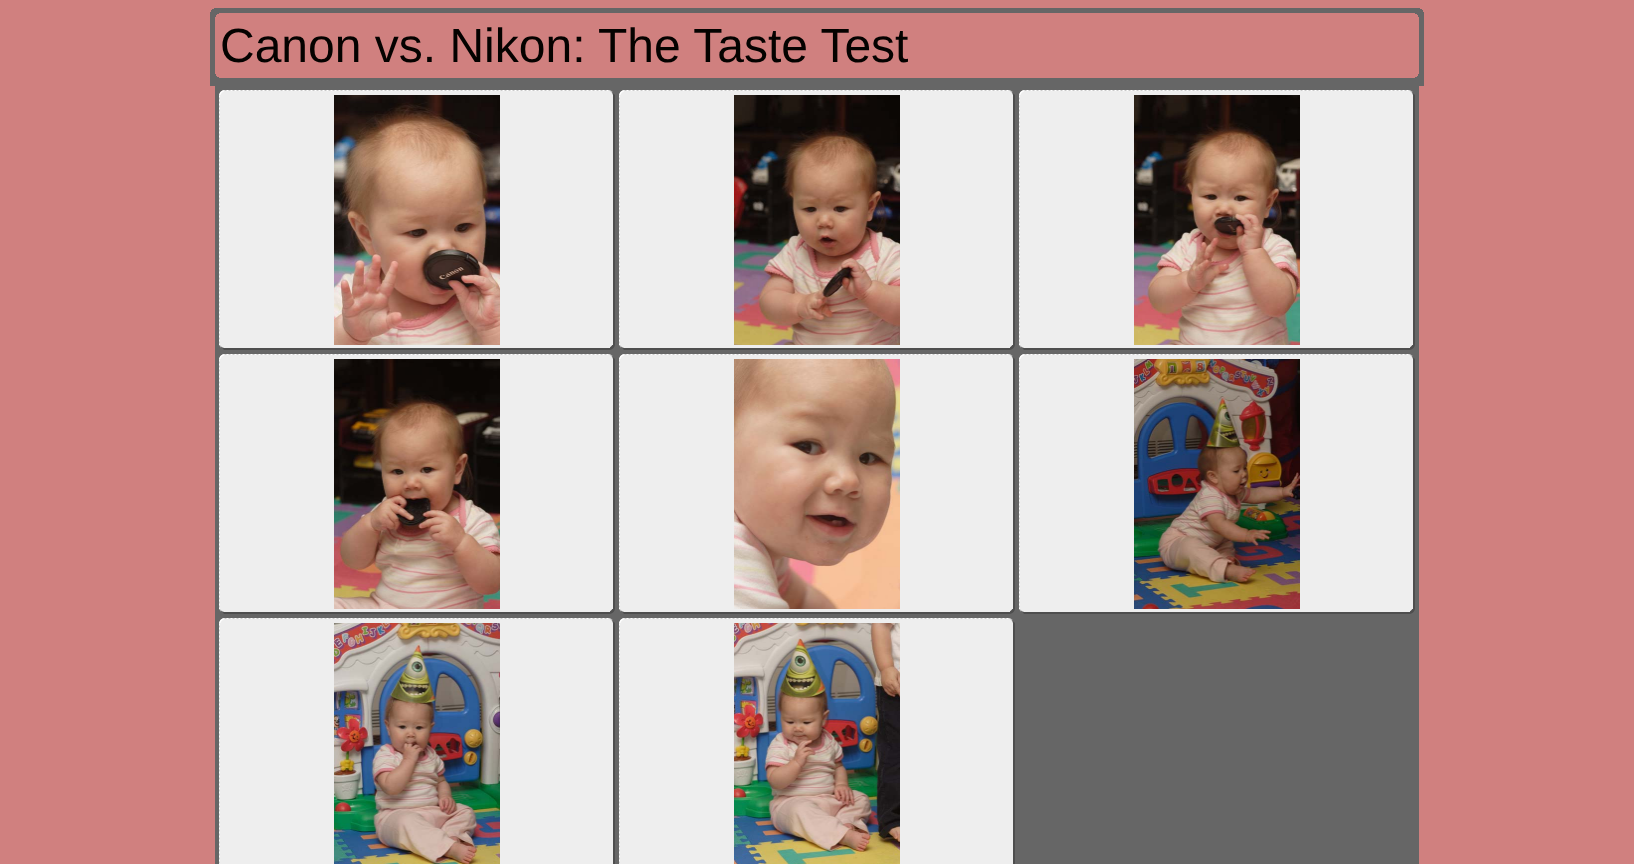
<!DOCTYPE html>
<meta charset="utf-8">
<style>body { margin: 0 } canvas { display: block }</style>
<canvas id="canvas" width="1634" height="864"></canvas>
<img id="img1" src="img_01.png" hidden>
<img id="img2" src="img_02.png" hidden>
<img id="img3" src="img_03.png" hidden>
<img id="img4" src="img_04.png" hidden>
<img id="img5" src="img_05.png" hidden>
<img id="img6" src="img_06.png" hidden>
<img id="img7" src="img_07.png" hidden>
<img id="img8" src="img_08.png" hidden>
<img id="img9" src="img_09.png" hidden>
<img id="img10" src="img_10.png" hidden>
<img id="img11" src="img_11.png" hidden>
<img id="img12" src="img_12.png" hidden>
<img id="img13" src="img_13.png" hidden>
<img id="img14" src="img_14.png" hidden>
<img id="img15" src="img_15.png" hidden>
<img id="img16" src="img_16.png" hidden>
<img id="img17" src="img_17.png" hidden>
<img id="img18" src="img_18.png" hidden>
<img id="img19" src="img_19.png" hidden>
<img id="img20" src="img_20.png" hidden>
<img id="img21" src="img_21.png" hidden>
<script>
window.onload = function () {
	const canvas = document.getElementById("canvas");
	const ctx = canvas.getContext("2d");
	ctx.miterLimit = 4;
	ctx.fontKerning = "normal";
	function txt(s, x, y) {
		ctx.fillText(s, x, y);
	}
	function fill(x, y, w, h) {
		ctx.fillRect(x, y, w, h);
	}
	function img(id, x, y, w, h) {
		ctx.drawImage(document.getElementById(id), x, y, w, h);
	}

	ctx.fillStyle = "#D0807F";
	fill(0, 0, 1634, 864);
	img("img1", 210, 8, 5, 5);
	ctx.fillStyle = "#666666";
	fill(215, 8, 1204, 5);
	img("img2", 1419, 8, 5, 5);
	fill(210, 13, 1214, 73);
	ctx.fillStyle = "#D0807F";
	fill(215, 13, 1204, 5);
	img("img3", 215, 13, 4, 4);
	img("img4", 1415, 13, 4, 4);
	fill(215, 18, 1204, 55);
	fill(215, 73, 1204, 5);
	img("img5", 215, 74, 4, 4);
	img("img6", 1415, 74, 4, 4);
	ctx.fillStyle = "#666666";
	fill(215, 86, 1204, 778);
	img("img7", 219, 90, 5, 5);
	ctx.fillStyle = "#EEEEEE";
	fill(224, 91, 386, 4);
	img("img8", 224, 90, 386, 1);
	img("img9", 610, 90, 5, 5);
	fill(219, 95, 394, 250);
	img("img10", 219, 96, 1, 249);
	img("img11", 334, 95, 166, 250);
	ctx.fillStyle = "#4E4E4E";
	fill(613, 95, 2, 250);
	img("img12", 219, 345, 5, 5);
	ctx.fillStyle = "#EEEEEE";
	fill(224, 345, 386, 3);
	ctx.fillStyle = "#4E4E4E";
	fill(224, 348, 386, 2);
	img("img13", 610, 345, 5, 5);
	img("img7", 619, 90, 5, 5);
	ctx.fillStyle = "#EEEEEE";
	fill(624, 91, 386, 4);
	img("img8", 624, 90, 386, 1);
	img("img9", 1010, 90, 5, 5);
	fill(619, 95, 394, 250);
	img("img10", 619, 96, 1, 249);
	img("img14", 734, 95, 166, 250);
	ctx.fillStyle = "#4E4E4E";
	fill(1013, 95, 2, 250);
	img("img12", 619, 345, 5, 5);
	ctx.fillStyle = "#EEEEEE";
	fill(624, 345, 386, 3);
	ctx.fillStyle = "#4E4E4E";
	fill(624, 348, 386, 2);
	img("img13", 1010, 345, 5, 5);
	img("img7", 1019, 90, 5, 5);
	ctx.fillStyle = "#EEEEEE";
	fill(1024, 91, 386, 4);
	img("img8", 1024, 90, 386, 1);
	img("img9", 1410, 90, 5, 5);
	fill(1019, 95, 394, 250);
	img("img10", 1019, 96, 1, 249);
	img("img15", 1134, 95, 166, 250);
	ctx.fillStyle = "#4E4E4E";
	fill(1413, 95, 2, 250);
	img("img12", 1019, 345, 5, 5);
	ctx.fillStyle = "#EEEEEE";
	fill(1024, 345, 386, 3);
	ctx.fillStyle = "#4E4E4E";
	fill(1024, 348, 386, 2);
	img("img13", 1410, 345, 5, 5);
	img("img7", 219, 354, 5, 5);
	ctx.fillStyle = "#EEEEEE";
	fill(224, 355, 386, 4);
	img("img8", 224, 354, 386, 1);
	img("img9", 610, 354, 5, 5);
	fill(219, 359, 394, 250);
	img("img10", 219, 360, 1, 249);
	img("img16", 334, 359, 166, 250);
	ctx.fillStyle = "#4E4E4E";
	fill(613, 359, 2, 250);
	img("img12", 219, 609, 5, 5);
	ctx.fillStyle = "#EEEEEE";
	fill(224, 609, 386, 3);
	ctx.fillStyle = "#4E4E4E";
	fill(224, 612, 386, 2);
	img("img13", 610, 609, 5, 5);
	img("img7", 619, 354, 5, 5);
	ctx.fillStyle = "#EEEEEE";
	fill(624, 355, 386, 4);
	img("img8", 624, 354, 386, 1);
	img("img9", 1010, 354, 5, 5);
	fill(619, 359, 394, 250);
	img("img10", 619, 360, 1, 249);
	img("img17", 734, 359, 166, 250);
	ctx.fillStyle = "#4E4E4E";
	fill(1013, 359, 2, 250);
	img("img12", 619, 609, 5, 5);
	ctx.fillStyle = "#EEEEEE";
	fill(624, 609, 386, 3);
	ctx.fillStyle = "#4E4E4E";
	fill(624, 612, 386, 2);
	img("img13", 1010, 609, 5, 5);
	img("img7", 1019, 354, 5, 5);
	ctx.fillStyle = "#EEEEEE";
	fill(1024, 355, 386, 4);
	img("img8", 1024, 354, 386, 1);
	img("img9", 1410, 354, 5, 5);
	fill(1019, 359, 394, 250);
	img("img10", 1019, 360, 1, 249);
	img("img18", 1134, 359, 166, 250);
	ctx.fillStyle = "#4E4E4E";
	fill(1413, 359, 2, 250);
	img("img12", 1019, 609, 5, 5);
	ctx.fillStyle = "#EEEEEE";
	fill(1024, 609, 386, 3);
	ctx.fillStyle = "#4E4E4E";
	fill(1024, 612, 386, 2);
	img("img13", 1410, 609, 5, 5);
	img("img7", 219, 618, 5, 5);
	ctx.fillStyle = "#EEEEEE";
	fill(224, 619, 386, 4);
	img("img8", 224, 618, 386, 1);
	img("img9", 610, 618, 5, 5);
	fill(219, 623, 394, 241);
	img("img19", 219, 624, 1, 239);
	img("img20", 334, 623, 166, 241);
	ctx.fillStyle = "#4E4E4E";
	fill(613, 623, 2, 241);
	img("img7", 619, 618, 5, 5);
	ctx.fillStyle = "#EEEEEE";
	fill(624, 619, 386, 4);
	img("img8", 624, 618, 386, 1);
	img("img9", 1010, 618, 5, 5);
	fill(619, 623, 394, 241);
	img("img19", 619, 624, 1, 239);
	img("img21", 734, 623, 166, 241);
	ctx.fillStyle = "#4E4E4E";
	fill(1013, 623, 2, 241);
	ctx.font = "48px Liberation Sans";
	ctx.fillStyle = "#050200";
	txt("Canon vs. Nikon:", 220, 62);
	txt("The Taste Test", 598, 62);
};
</script>
